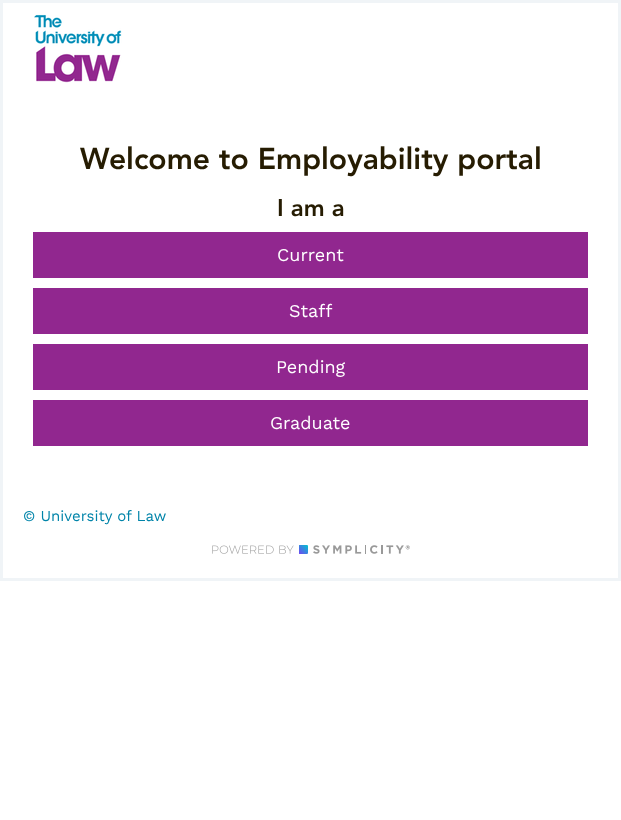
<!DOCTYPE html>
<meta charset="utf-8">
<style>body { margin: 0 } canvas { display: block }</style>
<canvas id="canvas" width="621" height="820"></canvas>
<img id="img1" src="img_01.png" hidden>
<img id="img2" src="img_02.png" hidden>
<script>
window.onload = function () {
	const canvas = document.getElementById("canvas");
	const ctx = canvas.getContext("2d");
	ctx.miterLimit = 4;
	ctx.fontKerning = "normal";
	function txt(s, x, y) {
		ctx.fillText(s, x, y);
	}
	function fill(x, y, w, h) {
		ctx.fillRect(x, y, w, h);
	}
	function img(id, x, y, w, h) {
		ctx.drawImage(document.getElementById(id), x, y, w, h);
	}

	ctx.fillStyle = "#FFFFFF";
	fill(0, 0, 621, 820);
	ctx.strokeStyle = "#F0F4F7";
	ctx.lineWidth = 3;
	ctx.strokeRect(1.5, 1.5, 618, 578);
	img("img1", 34, 14, 88, 69);
	ctx.fillStyle = "#91278F";
	fill(33, 232, 555, 46);
	fill(33, 288, 555, 46);
	fill(33, 344, 555, 46);
	fill(33, 400, 555, 46);
	img("img2", 212, 545, 198, 9);
	ctx.font = "900 30px Avenir";
	ctx.fillStyle = "#261C02";
	txt("Welcome to Employability portal", 80, 169);
	ctx.font = "900 24px Avenir";
	txt("I am a", 277, 216);
	ctx.font = "18px Work Sans";
	ctx.fillStyle = "#FFFFFF";
	txt("Current", 277, 261);
	txt("Staff", 289, 317);
	txt("Pending", 276, 373);
	txt("Graduate", 270, 429);
	ctx.font = "15px Work Sans";
	ctx.fillStyle = "#0084A9";
	txt("© University of Law", 23, 521);
};
</script>
